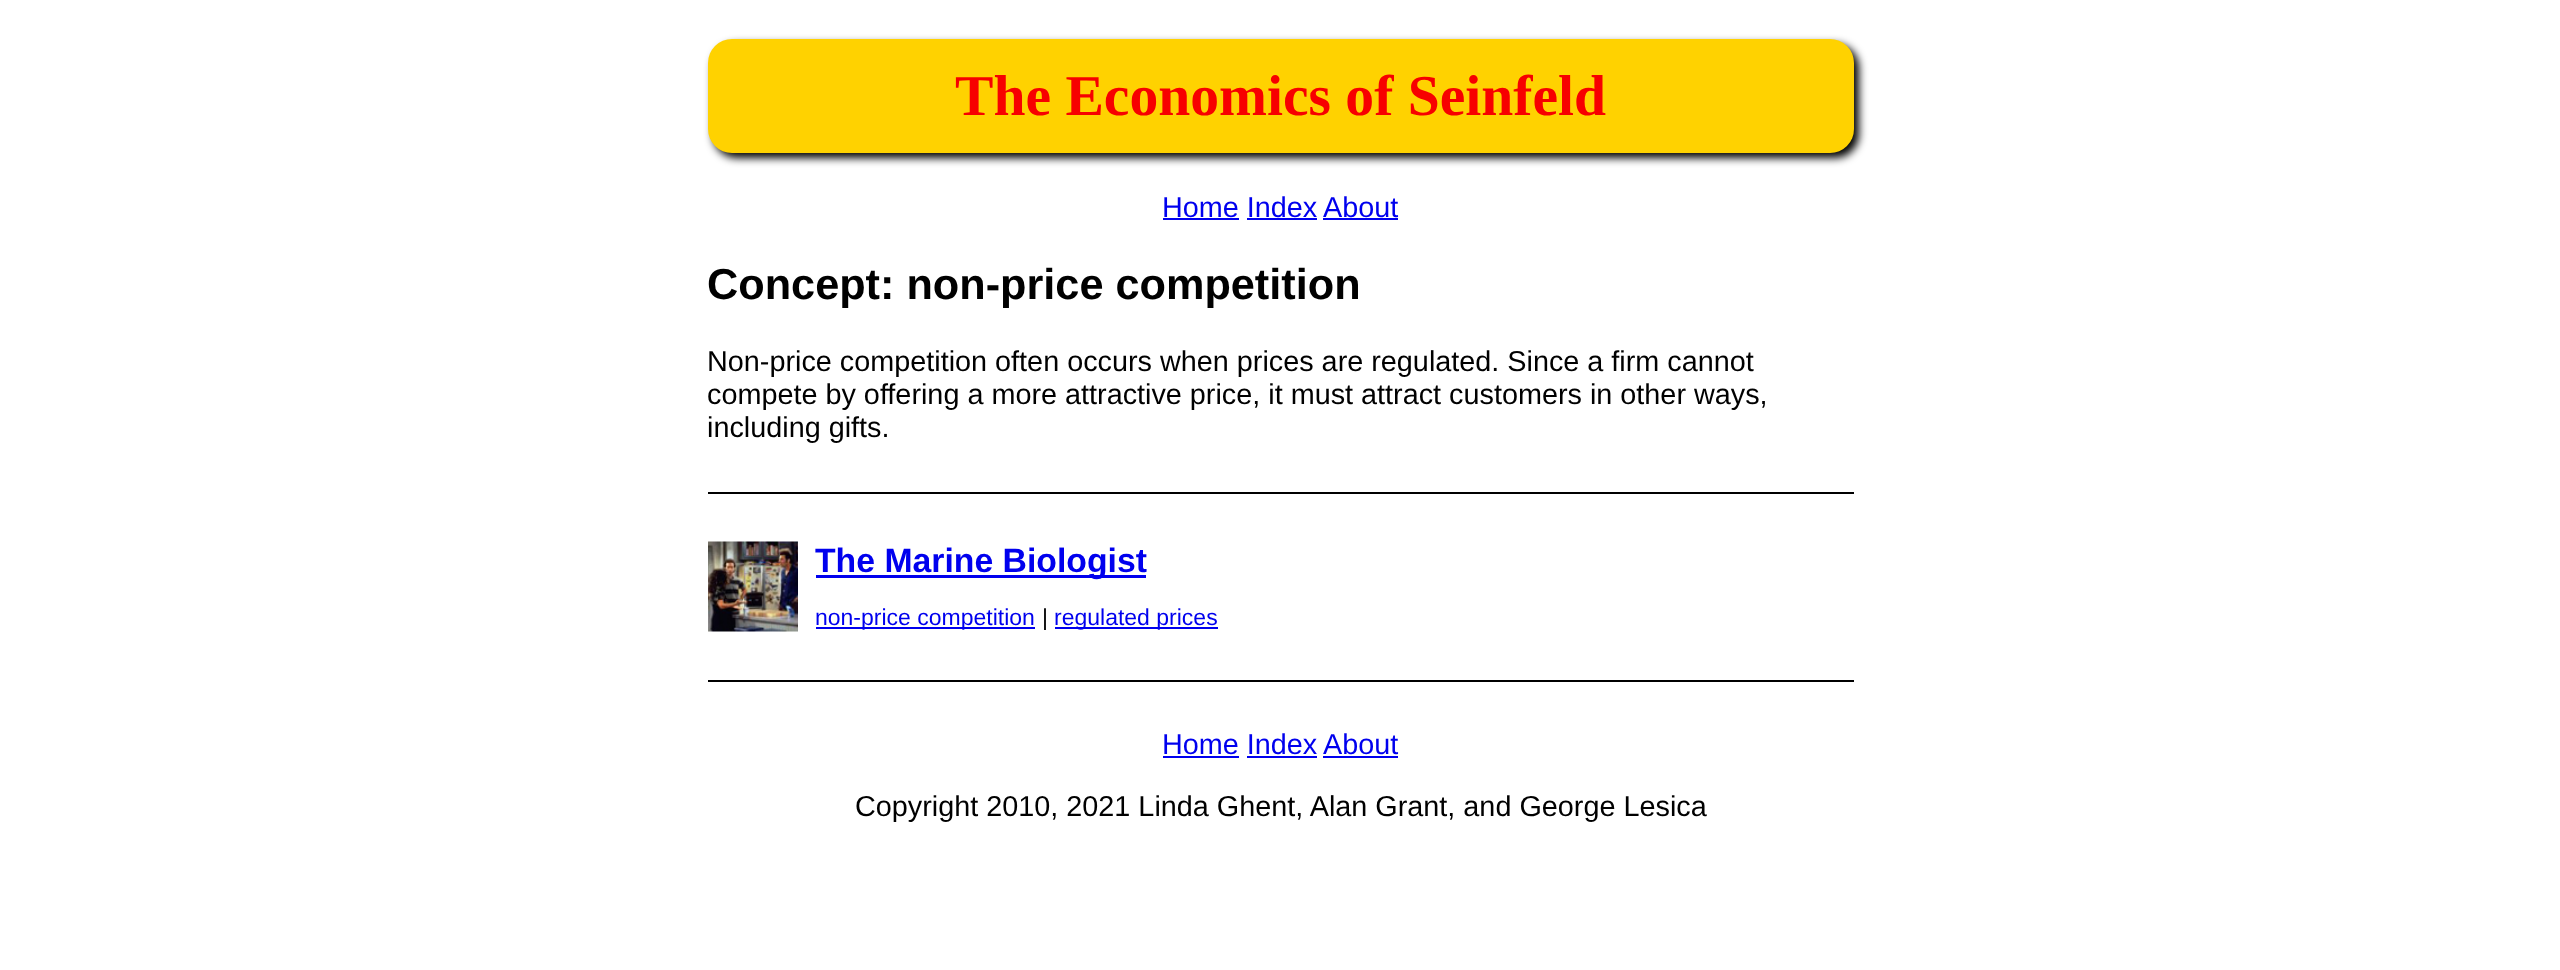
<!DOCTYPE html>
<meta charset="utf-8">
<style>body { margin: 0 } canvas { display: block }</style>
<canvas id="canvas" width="2560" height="970"></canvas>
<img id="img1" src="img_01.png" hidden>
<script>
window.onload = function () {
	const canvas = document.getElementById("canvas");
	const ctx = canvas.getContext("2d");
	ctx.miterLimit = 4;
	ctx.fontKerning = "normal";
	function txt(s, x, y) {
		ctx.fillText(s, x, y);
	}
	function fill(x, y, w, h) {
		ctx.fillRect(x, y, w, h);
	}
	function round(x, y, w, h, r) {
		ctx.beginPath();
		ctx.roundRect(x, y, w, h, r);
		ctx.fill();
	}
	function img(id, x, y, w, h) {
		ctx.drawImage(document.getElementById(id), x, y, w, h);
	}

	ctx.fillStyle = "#FFFFFF";
	fill(0, 0, 2560, 970);
	ctx.fillStyle = "#000000";
	ctx.filter = "blur(4px)";
	ctx.beginPath();
	ctx.roundRect(713, 44, 1146, 114, 24);
	ctx.fill();
	ctx.filter = "none";
	ctx.fillStyle = "#FFD200";
	round(708, 39, 1146, 114, 24);
	ctx.fillStyle = "#0000EE";
	fill(1163, 218, 76, 2);
	fill(1323, 218, 75, 2);
	fill(1247, 218, 70, 2);
	ctx.fillStyle = "#000000";
	fill(708, 492, 1146, 2);
	img("img1", 708, 541, 90, 91);
	ctx.fillStyle = "#0000EE";
	fill(816, 575, 330, 3);
	fill(816, 627, 219, 2);
	fill(1055, 627, 163, 2);
	ctx.fillStyle = "#000000";
	fill(708, 680, 1146, 2);
	ctx.fillStyle = "#0000EE";
	fill(1163, 756, 76, 2);
	fill(1323, 756, 75, 2);
	fill(1247, 756, 70, 2);
	ctx.font = "bold 57.6px Liberation Serif";
	ctx.fillStyle = "#F70000";
	txt("The Economics of Seinfeld", 955, 115);
	ctx.font = "28.8px Liberation Sans";
	ctx.fillStyle = "#0000EE";
	txt("Home Index", 1162, 217);
	txt("About", 1323, 217);
	ctx.font = "bold 43.25px Liberation Sans";
	ctx.fillStyle = "#000000";
	txt("Concept: non-price competition", 707, 299);
	ctx.font = "28.8px Liberation Sans";
	txt("Non-price competition often occurs when prices are regulated. Since a firm cannot", 707, 371);
	txt("compete by offering a more attractive price, it must attract customers in other ways,", 707, 404);
	txt("including gifts.", 707, 437);
	ctx.font = "bold 33.75px Liberation Sans";
	ctx.fillStyle = "#0000EE";
	txt("The Marine Biologist", 815, 572);
	ctx.font = "23px Liberation Sans";
	txt("non-price competition", 815, 625);
	ctx.fillStyle = "#000000";
	txt("|", 1042, 625);
	ctx.fillStyle = "#0000EE";
	txt("regulated prices", 1054, 625);
	ctx.font = "28.8px Liberation Sans";
	txt("Home Index", 1162, 754);
	txt("About", 1323, 754);
	ctx.fillStyle = "#000000";
	txt("Copyright 2010, 2021 Linda Ghent, Alan Grant, and George Lesica", 855, 816);
};
</script>
